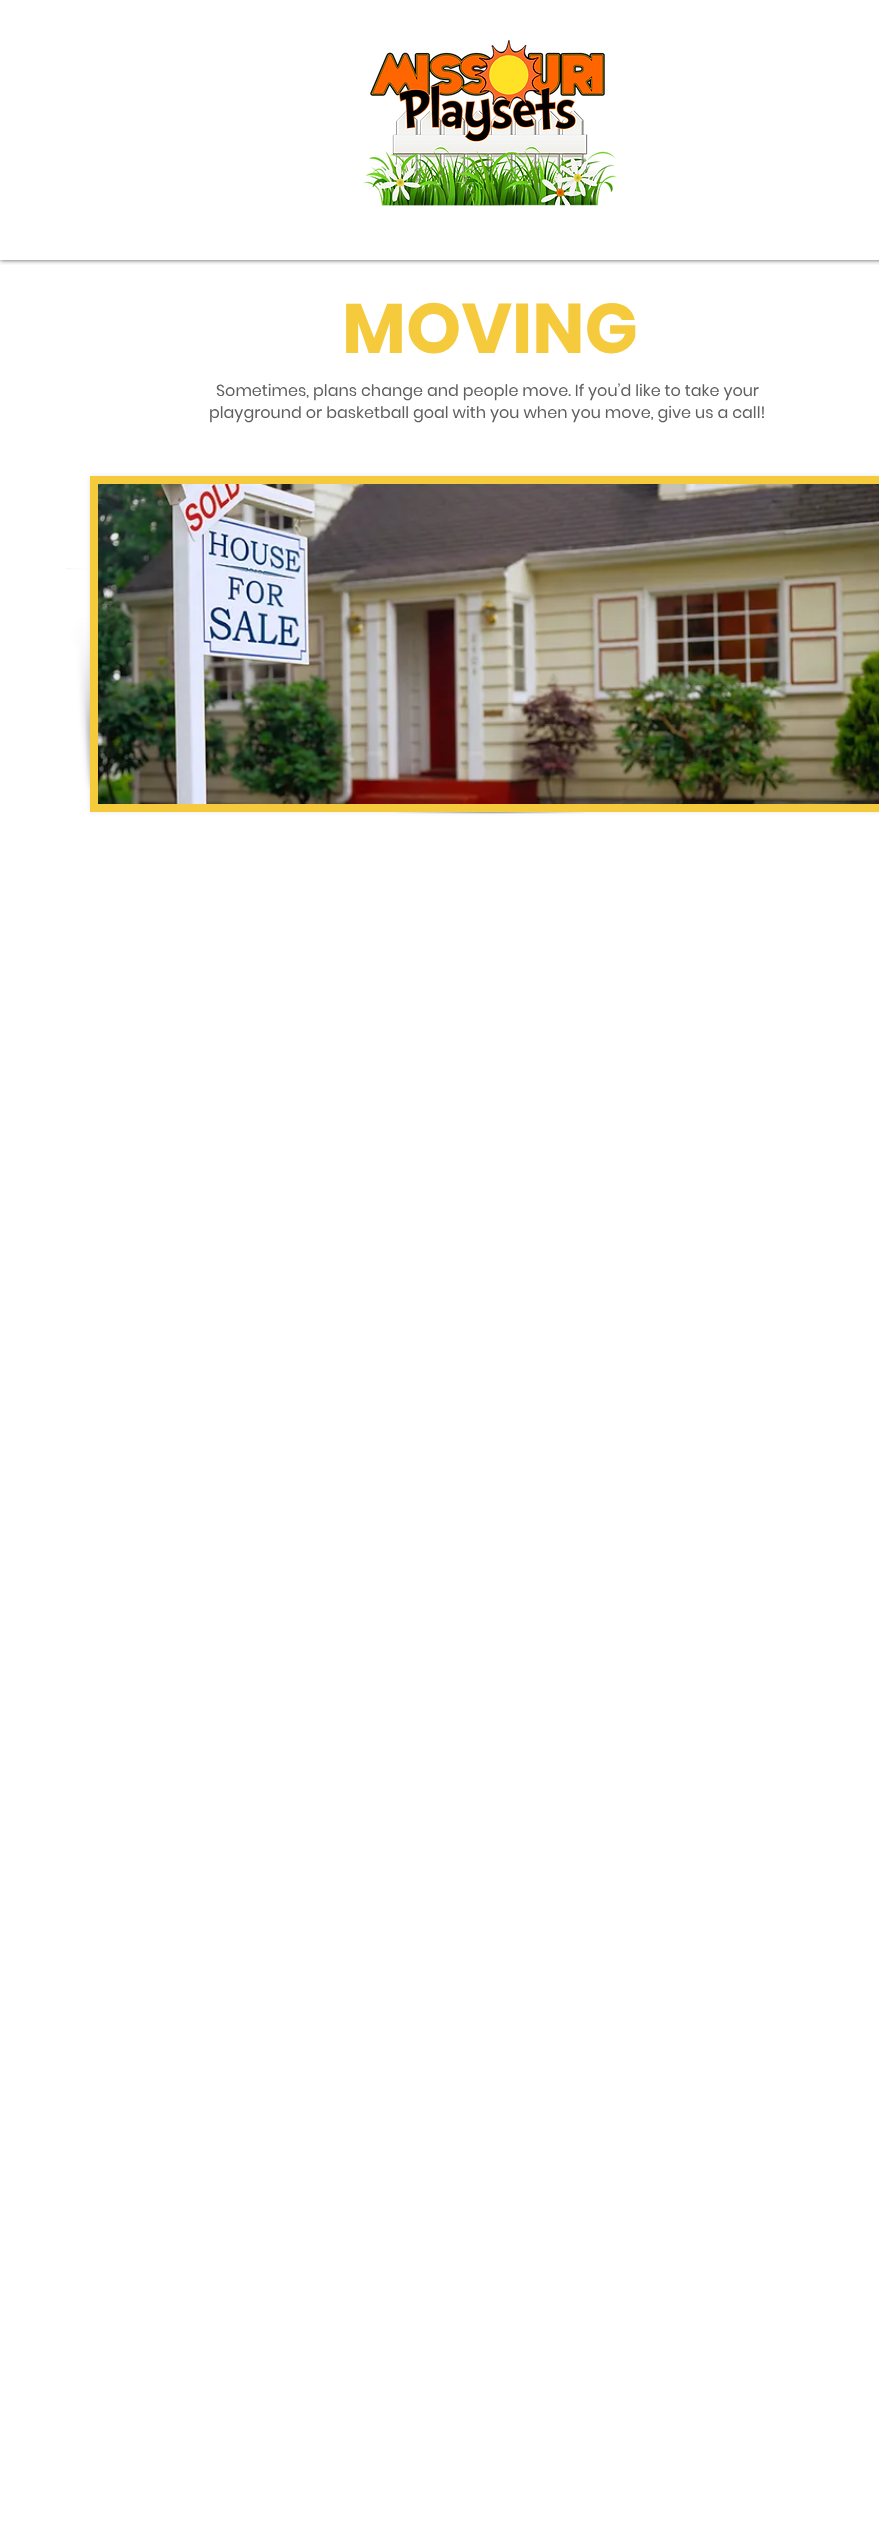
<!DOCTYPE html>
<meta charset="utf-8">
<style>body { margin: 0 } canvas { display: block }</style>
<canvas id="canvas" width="879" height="2534"></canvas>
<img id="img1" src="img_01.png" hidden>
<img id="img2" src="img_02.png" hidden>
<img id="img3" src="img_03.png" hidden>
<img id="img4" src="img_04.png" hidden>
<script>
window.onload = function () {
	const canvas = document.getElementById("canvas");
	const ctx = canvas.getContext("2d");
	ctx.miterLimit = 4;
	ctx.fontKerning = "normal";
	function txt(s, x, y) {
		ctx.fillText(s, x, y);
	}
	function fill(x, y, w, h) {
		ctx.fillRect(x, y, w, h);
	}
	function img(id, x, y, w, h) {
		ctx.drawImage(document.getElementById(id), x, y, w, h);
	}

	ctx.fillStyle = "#FFFFFF";
	fill(0, 0, 879, 2534);
	ctx.save();
	ctx.beginPath();
	ctx.rect(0, 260, 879, 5);
	ctx.clip();
	ctx.fillStyle = "rgba(0, 0, 0, 0.7)";
	ctx.filter = "blur(2.5px)";
	ctx.beginPath();
	ctx.rect(0, 0, 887, 260);
	ctx.fill();
	ctx.filter = "none";
	ctx.restore();
	img("img1", 363, 40, 254, 166);
	ctx.fillStyle = "rgba(0, 0, 0, 0.1)";
	ctx.filter = "blur(2.5px)";
	ctx.beginPath();
	ctx.rect(90, 476, 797, 336);
	ctx.fill();
	ctx.filter = "none";
	img("img2", 66, 568, 24, 220);
	ctx.fillStyle = "#F5CB3D";
	fill(90, 476, 789, 336);
	img("img3", 98, 484, 781, 320);
	img("img4", 396, 812, 188, 2);
	ctx.font = "bold 70px Poppins";
	txt("MOVING", 342, 353);
	ctx.font = "16px Poppins";
	ctx.fillStyle = "#605E5E";
	txt("Sometimes, plans change and people move. If you’d like to take your", 216, 396);
	txt("playground or basketball goal with you when you move, give us a call!", 209, 418);
};
</script>
